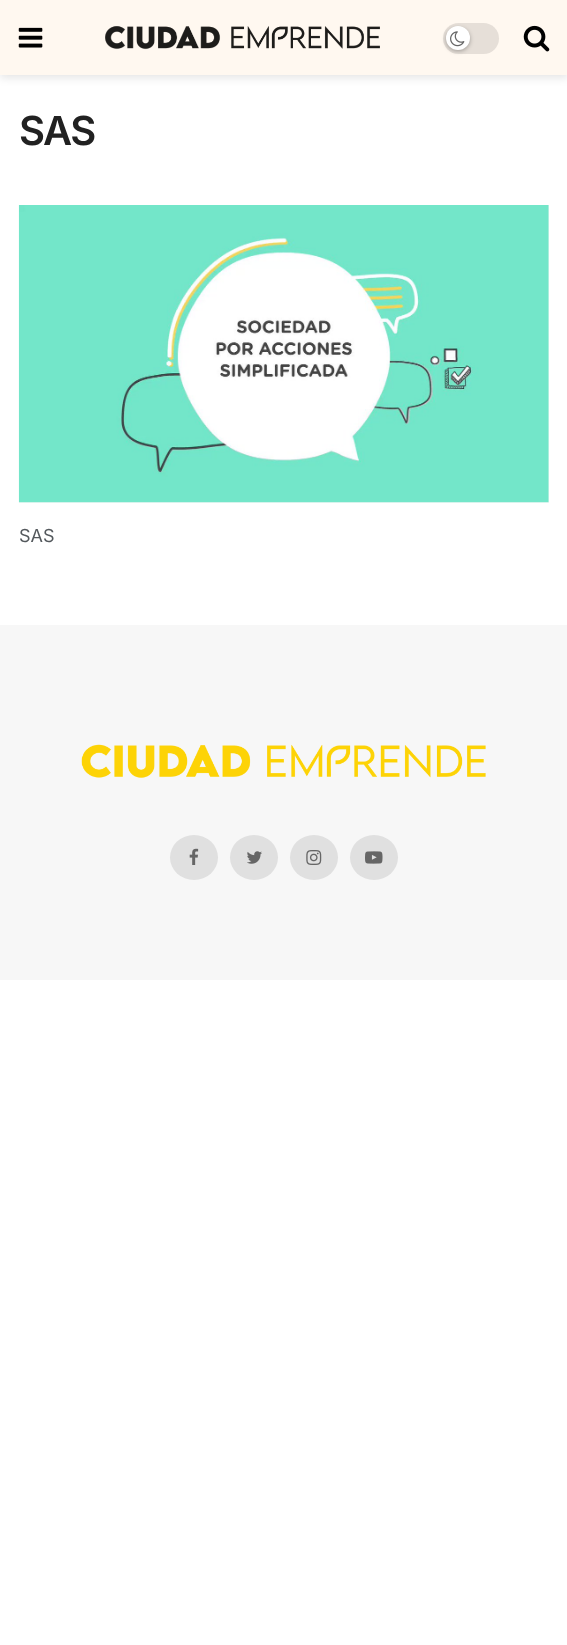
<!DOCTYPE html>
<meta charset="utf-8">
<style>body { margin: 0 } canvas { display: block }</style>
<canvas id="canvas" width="567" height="1645"></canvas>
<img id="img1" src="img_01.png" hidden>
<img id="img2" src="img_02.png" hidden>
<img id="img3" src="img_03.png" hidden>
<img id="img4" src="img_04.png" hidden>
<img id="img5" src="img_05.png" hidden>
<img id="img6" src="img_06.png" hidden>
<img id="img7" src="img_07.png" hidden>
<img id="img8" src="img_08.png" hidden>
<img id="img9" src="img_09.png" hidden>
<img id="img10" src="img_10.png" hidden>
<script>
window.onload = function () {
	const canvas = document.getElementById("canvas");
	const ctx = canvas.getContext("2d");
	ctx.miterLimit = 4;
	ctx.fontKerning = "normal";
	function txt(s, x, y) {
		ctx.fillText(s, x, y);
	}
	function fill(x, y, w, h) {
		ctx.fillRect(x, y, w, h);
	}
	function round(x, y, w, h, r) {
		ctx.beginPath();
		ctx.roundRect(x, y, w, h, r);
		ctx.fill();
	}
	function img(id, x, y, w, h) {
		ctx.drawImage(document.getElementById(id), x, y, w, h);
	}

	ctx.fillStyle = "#FFFFFF";
	fill(0, 0, 567, 1645);
	ctx.fillStyle = "rgba(0, 0, 0, 0.1)";
	ctx.filter = "blur(4px)";
	ctx.beginPath();
	ctx.rect(0, 3, 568, 75);
	ctx.fill();
	ctx.filter = "none";
	ctx.fillStyle = "#FFF8F0";
	fill(0, 0, 567, 75);
	img("img1", 18, 27, 25, 21);
	img("img2", 105, 26, 275, 24);
	ctx.fillStyle = "#E6DFD8";
	round(443, 23, 56, 31, 15.5);
	ctx.fillStyle = "rgba(0, 0, 0, 0.3)";
	ctx.filter = "blur(2px)";
	ctx.beginPath();
	ctx.roundRect(446, 28, 24, 23, 11.5);
	ctx.fill();
	ctx.filter = "none";
	ctx.fillStyle = "#FFFFFF";
	ctx.beginPath();
	ctx.arc(458, 38, 12, 0, Math.PI * 2);
	ctx.fill();
	img("img3", 450, 31, 15, 16);
	img("img4", 523, 25, 27, 27);
	ctx.fillStyle = "#F7F7F7";
	fill(19, 205, 530, 298);
	img("img5", 18, 205, 531, 298);
	fill(0, 625, 567, 355);
	img("img6", 81, 744, 405, 34);
	ctx.fillStyle = "#E0E0E0";
	ctx.beginPath();
	ctx.ellipse(194, 857.5, 24, 22.5, 0, 0, Math.PI * 2);
	ctx.fill();
	img("img7", 189, 848, 10, 17);
	ctx.beginPath();
	ctx.ellipse(254, 857.5, 24, 22.5, 0, 0, Math.PI * 2);
	ctx.fill();
	img("img8", 247, 851, 15, 13);
	ctx.beginPath();
	ctx.ellipse(314, 857.5, 24, 22.5, 0, 0, Math.PI * 2);
	ctx.fill();
	img("img9", 306, 850, 16, 15);
	ctx.beginPath();
	ctx.ellipse(374, 857.5, 24, 22.5, 0, 0, Math.PI * 2);
	ctx.fill();
	img("img10", 365, 851, 18, 13);
	ctx.letterSpacing = "-1.5px";
	ctx.font = "600 40px Inter";
	ctx.fillStyle = "#212121";
	txt("SAS", 19, 145);
	ctx.letterSpacing = "0px";
	ctx.font = "18px Inter";
	ctx.fillStyle = "#53585C";
	txt("SAS", 19, 542);
};
</script>
